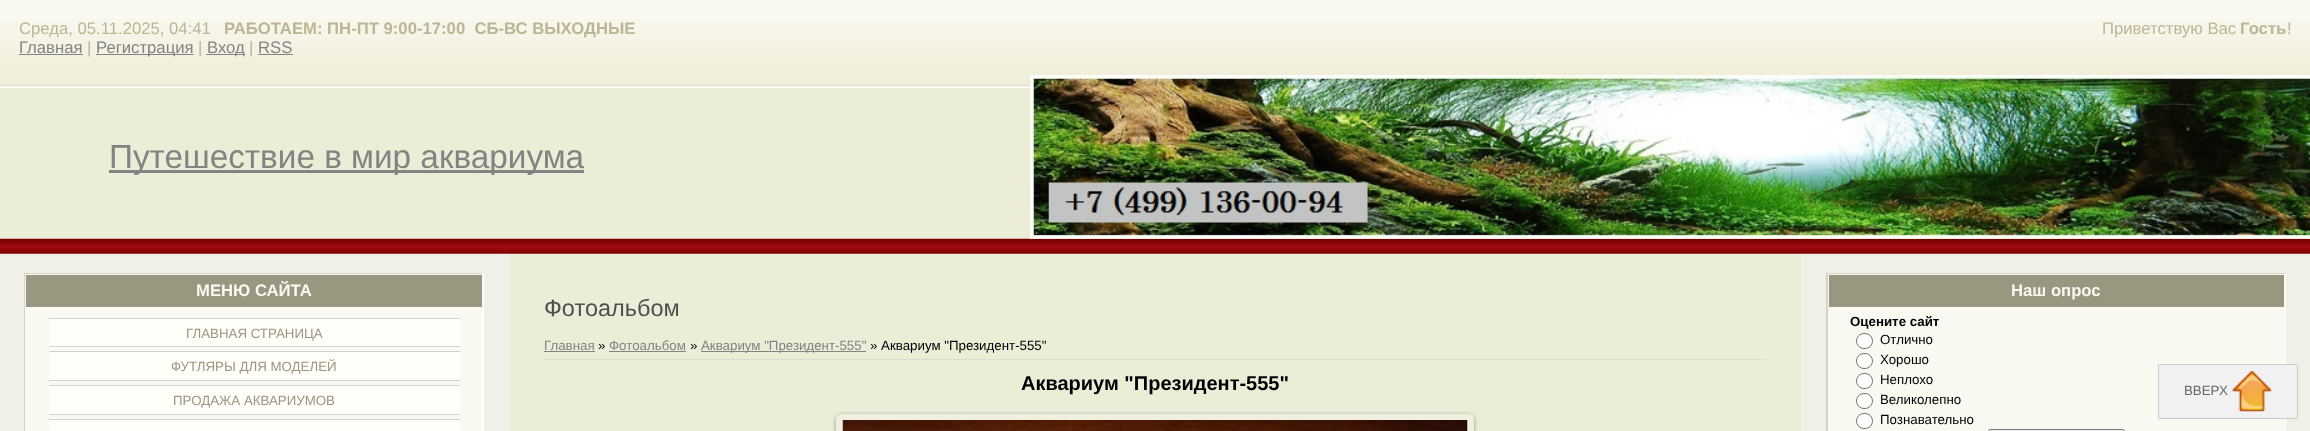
<!DOCTYPE html>
<meta charset="utf-8">
<style>body { margin: 0 } canvas { display: block }</style>
<canvas id="canvas" width="2310" height="431"></canvas>
<img id="img1" src="img_01.png" hidden>
<img id="img2" src="img_03.png" hidden>
<img id="img3" src="img_02.png" hidden>
<img id="img4" src="img_04.png" hidden>
<img id="img5" src="img_05.png" hidden>
<img id="img6" src="img_06.png" hidden>
<script>
window.onload = function () {
	const canvas = document.getElementById("canvas");
	const ctx = canvas.getContext("2d");
	ctx.miterLimit = 4;
	ctx.fontKerning = "normal";
	function txt(s, x, y) {
		ctx.fillText(s, x, y);
	}
	function fill(x, y, w, h) {
		ctx.fillRect(x, y, w, h);
	}
	function img(id, x, y, w, h) {
		ctx.drawImage(document.getElementById(id), x, y, w, h);
	}

	ctx.fillStyle = "#EBEDD7";
	fill(0, 0, 2310, 431);
	ctx.fillStyle = "#FAF9F1";
	fill(0, 0, 2310, 88);
	img("img1", 0, 19, 2310, 69);
	ctx.fillStyle = "#838383";
	fill(19, 54, 64, 1);
	fill(96, 54, 98, 1);
	fill(206, 54, 39, 1);
	fill(258, 54, 35, 1);
	fill(109, 170, 475, 3);
	img("img2", 0, 238, 2310, 16);
	img("img3", 1030, 75, 1280, 164);
	ctx.fillStyle = "#F1F0E8";
	fill(0, 254, 509, 177);
	ctx.fillStyle = "#FAF9F1";
	fill(25, 308, 457, 123);
	ctx.fillStyle = "#D3D2CB";
	fill(24, 273, 460, 1);
	ctx.fillStyle = "#FFFFFF";
	ctx.beginPath();
	ctx.moveTo(484, 272);
	ctx.lineTo(484, 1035);
	ctx.lineTo(482, 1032);
	ctx.lineTo(482, 274);
	ctx.closePath();
	ctx.fill();
	ctx.fillStyle = "#D3D2CB";
	ctx.beginPath();
	ctx.moveTo(24, 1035);
	ctx.lineTo(24, 272);
	ctx.lineTo(25, 274);
	ctx.lineTo(25, 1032);
	ctx.closePath();
	ctx.fill();
	ctx.fillStyle = "#99977F";
	ctx.beginPath();
	ctx.rect(25.5, 274.5, 457, 33);
	ctx.fill();
	ctx.strokeStyle = "#FAF9F1";
	ctx.stroke();
	ctx.fillStyle = "#FFFEF9";
	fill(49, 319, 411, 29);
	ctx.fillStyle = "#D3D2CB";
	fill(49, 318, 411, 1);
	fill(49, 346, 411, 1);
	ctx.fillStyle = "#FFFEF9";
	fill(49, 352, 411, 28);
	ctx.fillStyle = "#D3D2CB";
	fill(49, 351, 411, 1);
	fill(49, 380, 411, 1);
	ctx.fillStyle = "#FFFEF9";
	fill(49, 386, 411, 28);
	ctx.fillStyle = "#D3D2CB";
	fill(49, 385, 411, 1);
	fill(49, 414, 411, 1);
	ctx.fillStyle = "#FFFEF9";
	fill(49, 420, 411, 11);
	ctx.fillStyle = "#D3D2CB";
	fill(49, 419, 411, 1);
	ctx.fillStyle = "#838383";
	fill(544, 351, 51, 1);
	fill(609, 351, 77, 1);
	fill(701, 351, 165, 1);
	ctx.fillStyle = "#DCDBD4";
	fill(544, 359, 1222, 1);
	ctx.save();
	ctx.beginPath();
	ctx.moveTo(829, 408);
	ctx.lineTo(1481, 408);
	ctx.lineTo(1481, 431);
	ctx.lineTo(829, 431);
	ctx.closePath();
	ctx.moveTo(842, 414);
	ctx.lineTo(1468, 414);
	ctx.bezierCurveTo(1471.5, 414, 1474, 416.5, 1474, 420);
	ctx.lineTo(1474, 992);
	ctx.bezierCurveTo(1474, 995.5, 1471.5, 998, 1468, 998);
	ctx.lineTo(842, 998);
	ctx.bezierCurveTo(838.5, 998, 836, 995.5, 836, 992);
	ctx.lineTo(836, 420);
	ctx.bezierCurveTo(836, 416.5, 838.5, 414, 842, 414);
	ctx.closePath();
	ctx.clip("evenodd");
	ctx.fillStyle = "rgba(0, 0, 0, 0.37)";
	ctx.filter = "blur(2px)";
	ctx.beginPath();
	ctx.roundRect(836, 415, 638, 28, 6);
	ctx.fill();
	ctx.filter = "none";
	ctx.restore();
	img("img4", 836, 414, 638, 17);
	img("img5", 842, 420, 626, 11);
	ctx.fillStyle = "#F1F0E8";
	fill(1801, 254, 509, 177);
	ctx.fillStyle = "#FAF9F1";
	fill(1828, 308, 457, 123);
	ctx.fillStyle = "#D3D2CB";
	fill(1826, 273, 460, 1);
	ctx.fillStyle = "#FFFFFF";
	ctx.beginPath();
	ctx.moveTo(2286, 272);
	ctx.lineTo(2286, 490);
	ctx.lineTo(2285, 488);
	ctx.lineTo(2285, 274);
	ctx.closePath();
	ctx.fill();
	ctx.fillStyle = "#D3D2CB";
	ctx.beginPath();
	ctx.moveTo(1826, 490);
	ctx.lineTo(1826, 272);
	ctx.lineTo(1828, 274);
	ctx.lineTo(1828, 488);
	ctx.closePath();
	ctx.fill();
	ctx.fillStyle = "#99977F";
	ctx.beginPath();
	ctx.rect(1828.5, 274.5, 456, 33);
	ctx.fill();
	ctx.stroke();
	ctx.fillStyle = "#FFFFFF";
	ctx.beginPath();
	ctx.roundRect(1856.5, 333.5, 16, 15, 7.5);
	ctx.fill();
	ctx.strokeStyle = "#767676";
	ctx.stroke();
	ctx.beginPath();
	ctx.roundRect(1856.5, 353.5, 16, 15, 7.5);
	ctx.fill();
	ctx.stroke();
	ctx.beginPath();
	ctx.roundRect(1856.5, 373.5, 16, 15, 7.5);
	ctx.fill();
	ctx.stroke();
	ctx.beginPath();
	ctx.roundRect(1856.5, 393.5, 16, 15, 7.5);
	ctx.fill();
	ctx.stroke();
	ctx.beginPath();
	ctx.roundRect(1856.5, 413.5, 16, 15, 7.5);
	ctx.fill();
	ctx.stroke();
	ctx.fillStyle = "#EFEFEF";
	ctx.beginPath();
	ctx.roundRect(1988.5, 429.5, 136, 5, 2);
	ctx.fill();
	ctx.stroke();
	ctx.fillStyle = "#F1F1F1";
	ctx.beginPath();
	ctx.rect(2158.5, 364.5, 139, 54);
	ctx.fill();
	ctx.strokeStyle = "#CCCCCC";
	ctx.stroke();
	img("img6", 2232, 371, 40, 41);
	ctx.font = "16.7px Liberation Sans";
	ctx.fillStyle = "#BBB696";
	txt("Среда, 05.11.2025, 04:41", 19, 34);
	ctx.font = "bold 16.7px Liberation Sans";
	txt("РАБОТАЕМ: ПН-ПТ 9:00-17:00  СБ-ВС ВЫХОДНЫЕ", 224, 34);
	ctx.font = "16.7px Liberation Sans";
	ctx.fillStyle = "#838383";
	txt("Главная", 19, 53);
	ctx.fillStyle = "#BBB696";
	txt("|", 87, 53);
	ctx.fillStyle = "#838383";
	txt("Регистрация", 96, 53);
	ctx.fillStyle = "#BBB696";
	txt("|", 198, 53);
	ctx.fillStyle = "#838383";
	txt("Вход", 207, 53);
	ctx.fillStyle = "#BBB696";
	txt("|", 249, 53);
	ctx.fillStyle = "#838383";
	txt("RSS", 258, 53);
	ctx.fillStyle = "#BBB696";
	txt("Приветствую Вас", 2102, 34);
	ctx.font = "bold 16.7px Liberation Sans";
	txt("Гость", 2240, 34);
	ctx.font = "16.7px Liberation Sans";
	txt("!", 2287, 34);
	ctx.font = "33.3px Liberation Sans";
	ctx.fillStyle = "#838383";
	txt("Путешествие в мир аквариума", 109, 168);
	ctx.font = "bold 16.7px Liberation Sans";
	ctx.fillStyle = "#FAF9F1";
	txt("МЕНЮ САЙТА", 196, 296);
	ctx.font = "13.3px Liberation Sans";
	ctx.fillStyle = "#99977F";
	txt("ГЛАВНАЯ СТРАНИЦА", 186, 338);
	txt("ФУТЛЯРЫ ДЛЯ МОДЕЛЕЙ", 171, 371);
	txt("ПРОДАЖА АКВАРИУМОВ", 173, 405);
	ctx.font = "23.5px Liberation Sans";
	ctx.fillStyle = "#505050";
	txt("Фотоальбом", 544, 316);
	ctx.font = "13.3px Liberation Sans";
	ctx.fillStyle = "#838383";
	txt("Главная", 544, 350);
	ctx.fillStyle = "#000000";
	txt("»", 598, 350);
	ctx.fillStyle = "#838383";
	txt("Фотоальбом", 609, 350);
	ctx.fillStyle = "#000000";
	txt("»", 690, 350);
	ctx.fillStyle = "#838383";
	txt("Аквариум \"Президент-555\"", 701, 350);
	ctx.fillStyle = "#000000";
	txt("» Аквариум \"Президент-555\"", 870, 350);
	ctx.font = "bold 20px Liberation Sans";
	txt("Аквариум \"Президент-555\"", 1021, 390);
	ctx.font = "bold 16.7px Liberation Sans";
	ctx.fillStyle = "#FAF9F1";
	txt("Наш опрос", 2011, 296);
	ctx.font = "bold 13.3px Liberation Sans";
	ctx.fillStyle = "#000000";
	txt("Оцените сайт", 1850, 326);
	ctx.font = "13.3px Liberation Sans";
	txt("Отлично", 1880, 344);
	txt("Хорошо", 1880, 364);
	txt("Неплохо", 1880, 384);
	txt("Великолепно", 1880, 404);
	txt("Познавательно", 1880, 424);
	ctx.fillStyle = "#666666";
	txt("ВВЕРХ", 2184, 395);
};
</script>
